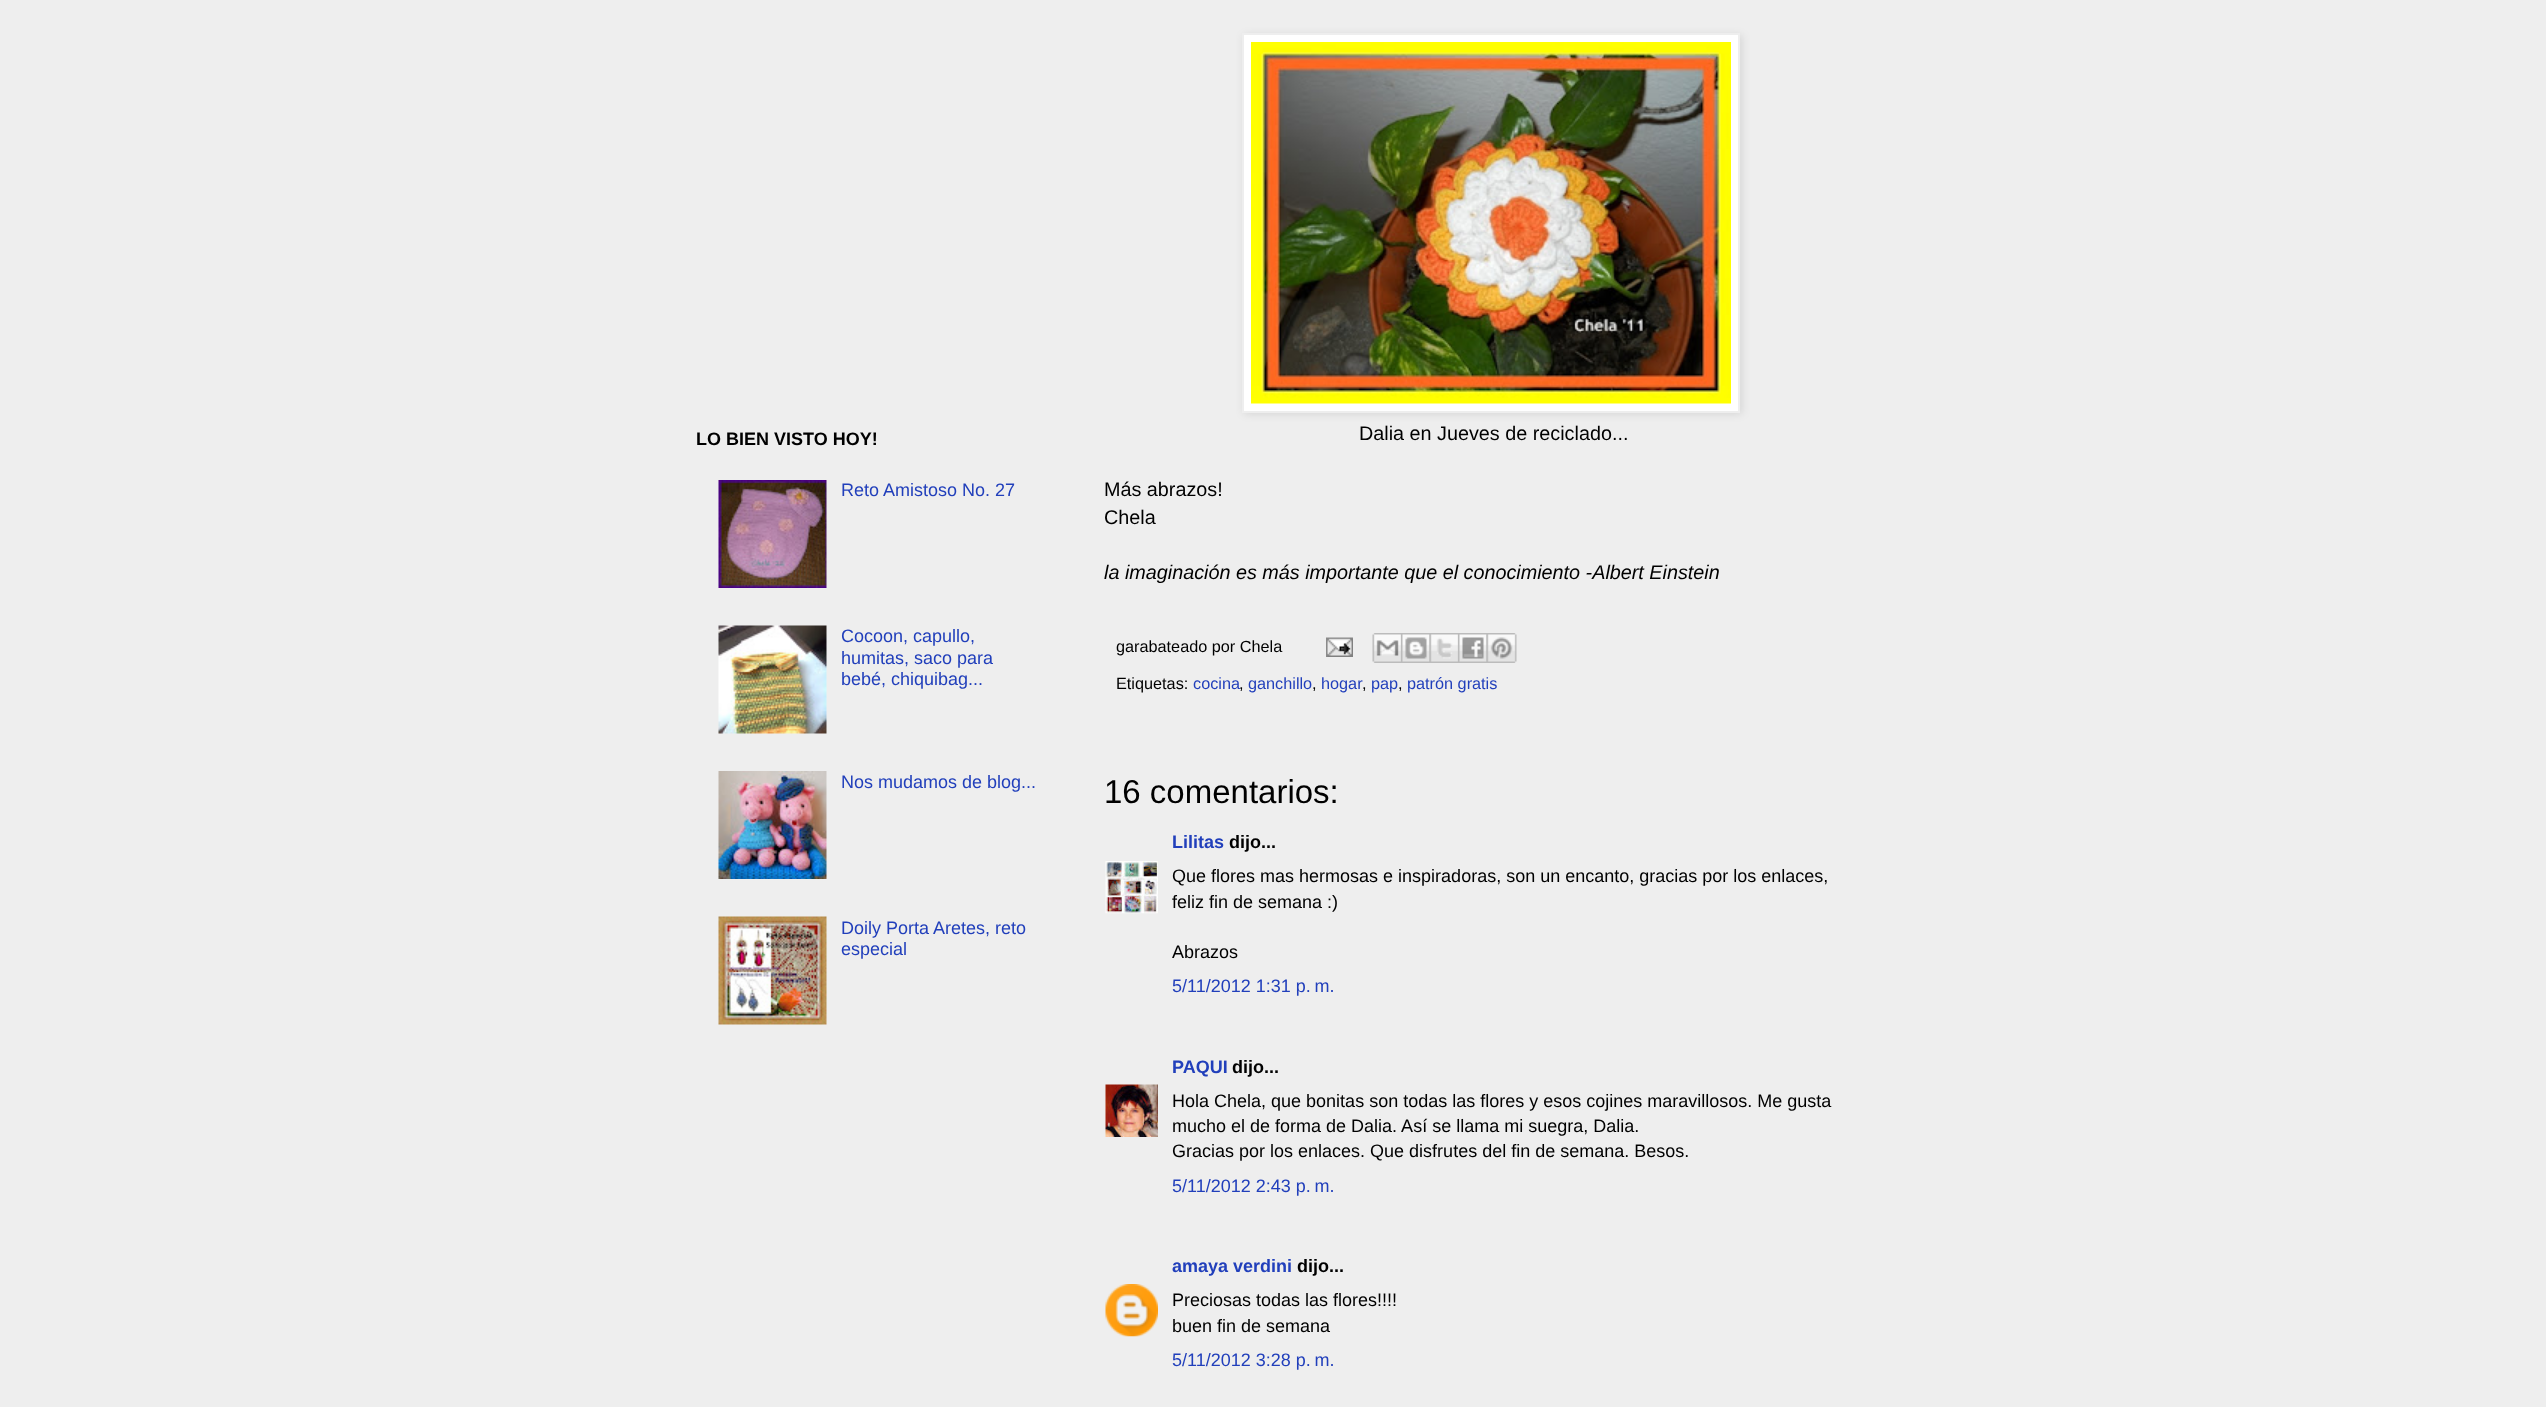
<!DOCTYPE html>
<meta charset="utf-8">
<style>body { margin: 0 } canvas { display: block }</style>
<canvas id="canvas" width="2546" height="1407"></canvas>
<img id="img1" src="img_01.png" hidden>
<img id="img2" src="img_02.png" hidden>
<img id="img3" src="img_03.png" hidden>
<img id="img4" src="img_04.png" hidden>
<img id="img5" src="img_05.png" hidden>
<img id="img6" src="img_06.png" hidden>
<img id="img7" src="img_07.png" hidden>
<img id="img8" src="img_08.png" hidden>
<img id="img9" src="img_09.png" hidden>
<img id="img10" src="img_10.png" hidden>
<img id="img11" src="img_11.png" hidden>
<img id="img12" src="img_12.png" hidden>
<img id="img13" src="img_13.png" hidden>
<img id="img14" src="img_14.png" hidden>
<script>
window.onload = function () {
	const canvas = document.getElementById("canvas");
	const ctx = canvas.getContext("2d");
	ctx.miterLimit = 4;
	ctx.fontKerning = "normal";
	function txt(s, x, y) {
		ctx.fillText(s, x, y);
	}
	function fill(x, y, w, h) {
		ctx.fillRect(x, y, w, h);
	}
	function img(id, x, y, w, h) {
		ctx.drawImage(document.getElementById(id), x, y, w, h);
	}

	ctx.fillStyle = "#EEEEEE";
	fill(0, 0, 2546, 1407);
	img("img1", 718, 480, 109, 108);
	img("img2", 718, 625, 109, 109);
	img("img3", 718, 771, 109, 108);
	img("img4", 718, 916, 109, 109);
	ctx.fillStyle = "rgba(0, 0, 0, 0.1)";
	ctx.filter = "blur(4px)";
	ctx.beginPath();
	ctx.rect(1244, 35, 498, 379);
	ctx.fill();
	ctx.filter = "none";
	ctx.fillStyle = "#FFFFFF";
	ctx.beginPath();
	ctx.rect(1243, 34, 496, 378);
	ctx.fill();
	ctx.strokeStyle = "#EEEEEE";
	ctx.lineWidth = 2;
	ctx.stroke();
	img("img5", 1251, 42, 480, 362);
	img("img6", 1326, 637, 27, 20);
	img("img7", 1372, 633, 29, 30);
	img("img8", 1401, 633, 29, 30);
	img("img9", 1429, 633, 29, 30);
	img("img10", 1458, 633, 29, 30);
	img("img11", 1486, 633, 31, 30);
	img("img12", 1105, 861, 53, 53);
	img("img13", 1105, 1084, 53, 53);
	img("img14", 1105, 1284, 53, 53);
	ctx.font = "bold 18px Liberation Sans";
	ctx.fillStyle = "#000000";
	txt("LO BIEN VISTO HOY!", 696, 445);
	ctx.font = "18px Liberation Sans";
	ctx.fillStyle = "#213FBB";
	txt("Reto Amistoso No. 27", 841, 496);
	txt("Cocoon, capullo,", 841, 642);
	txt("humitas, saco para", 841, 664);
	txt("bebé, chiquibag...", 841, 685);
	txt("Nos mudamos de blog...", 841, 788);
	txt("Doily Porta Aretes, reto", 841, 934);
	txt("especial", 841, 955);
	ctx.font = "19.8px Liberation Sans";
	ctx.fillStyle = "#000000";
	txt("Dalia en Jueves de reciclado...", 1359, 440);
	txt("Más abrazos!", 1104, 496);
	txt("Chela", 1104, 524);
	ctx.font = "italic 19.8px Liberation Sans";
	txt("la imaginación es más importante que el conocimiento -Albert Einstein", 1104, 579);
	ctx.font = "16.25px Liberation Sans";
	txt("garabateado por Chela", 1116, 652);
	txt("Etiquetas:", 1116, 689);
	ctx.fillStyle = "#213FBB";
	txt("cocina", 1193, 689);
	ctx.fillStyle = "#000000";
	txt(",", 1239, 689);
	ctx.fillStyle = "#213FBB";
	txt("ganchillo", 1248, 689);
	ctx.fillStyle = "#000000";
	txt(",", 1312, 689);
	ctx.fillStyle = "#213FBB";
	txt("hogar", 1321, 689);
	ctx.fillStyle = "#000000";
	txt(",", 1362, 689);
	ctx.fillStyle = "#213FBB";
	txt("pap", 1371, 689);
	ctx.fillStyle = "#000000";
	txt(",", 1398, 689);
	ctx.fillStyle = "#213FBB";
	txt("patrón gratis", 1407, 689);
	ctx.font = "33px Liberation Sans";
	ctx.fillStyle = "#000000";
	txt("16 comentarios:", 1104, 803);
	ctx.font = "bold 18px Liberation Sans";
	ctx.fillStyle = "#213FBB";
	txt("Lilitas", 1172, 848);
	ctx.fillStyle = "#000000";
	txt("dijo...", 1229, 848);
	ctx.font = "18px Liberation Sans";
	txt("Que flores mas hermosas e inspiradoras, son un encanto, gracias por los enlaces,", 1172, 882);
	txt("feliz fin de semana :)", 1172, 908);
	txt("Abrazos", 1172, 958);
	ctx.fillStyle = "#213FBB";
	txt("5/11/2012 1:31 p. m.", 1172, 992);
	ctx.font = "bold 18px Liberation Sans";
	txt("PAQUI", 1172, 1073);
	ctx.fillStyle = "#000000";
	txt("dijo...", 1232, 1073);
	ctx.font = "18px Liberation Sans";
	txt("Hola Chela, que bonitas son todas las flores y esos cojines maravillosos. Me gusta", 1172, 1107);
	txt("mucho el de forma de Dalia. Así se llama mi suegra, Dalia.", 1172, 1132);
	txt("Gracias por los enlaces. Que disfrutes del fin de semana. Besos.", 1172, 1157);
	ctx.fillStyle = "#213FBB";
	txt("5/11/2012 2:43 p. m.", 1172, 1192);
	ctx.font = "bold 18px Liberation Sans";
	txt("amaya verdini", 1172, 1272);
	ctx.fillStyle = "#000000";
	txt("dijo...", 1297, 1272);
	ctx.font = "18px Liberation Sans";
	txt("Preciosas todas las flores!!!!", 1172, 1306);
	txt("buen fin de semana", 1172, 1332);
	ctx.fillStyle = "#213FBB";
	txt("5/11/2012 3:28 p. m.", 1172, 1366);
};
</script>
